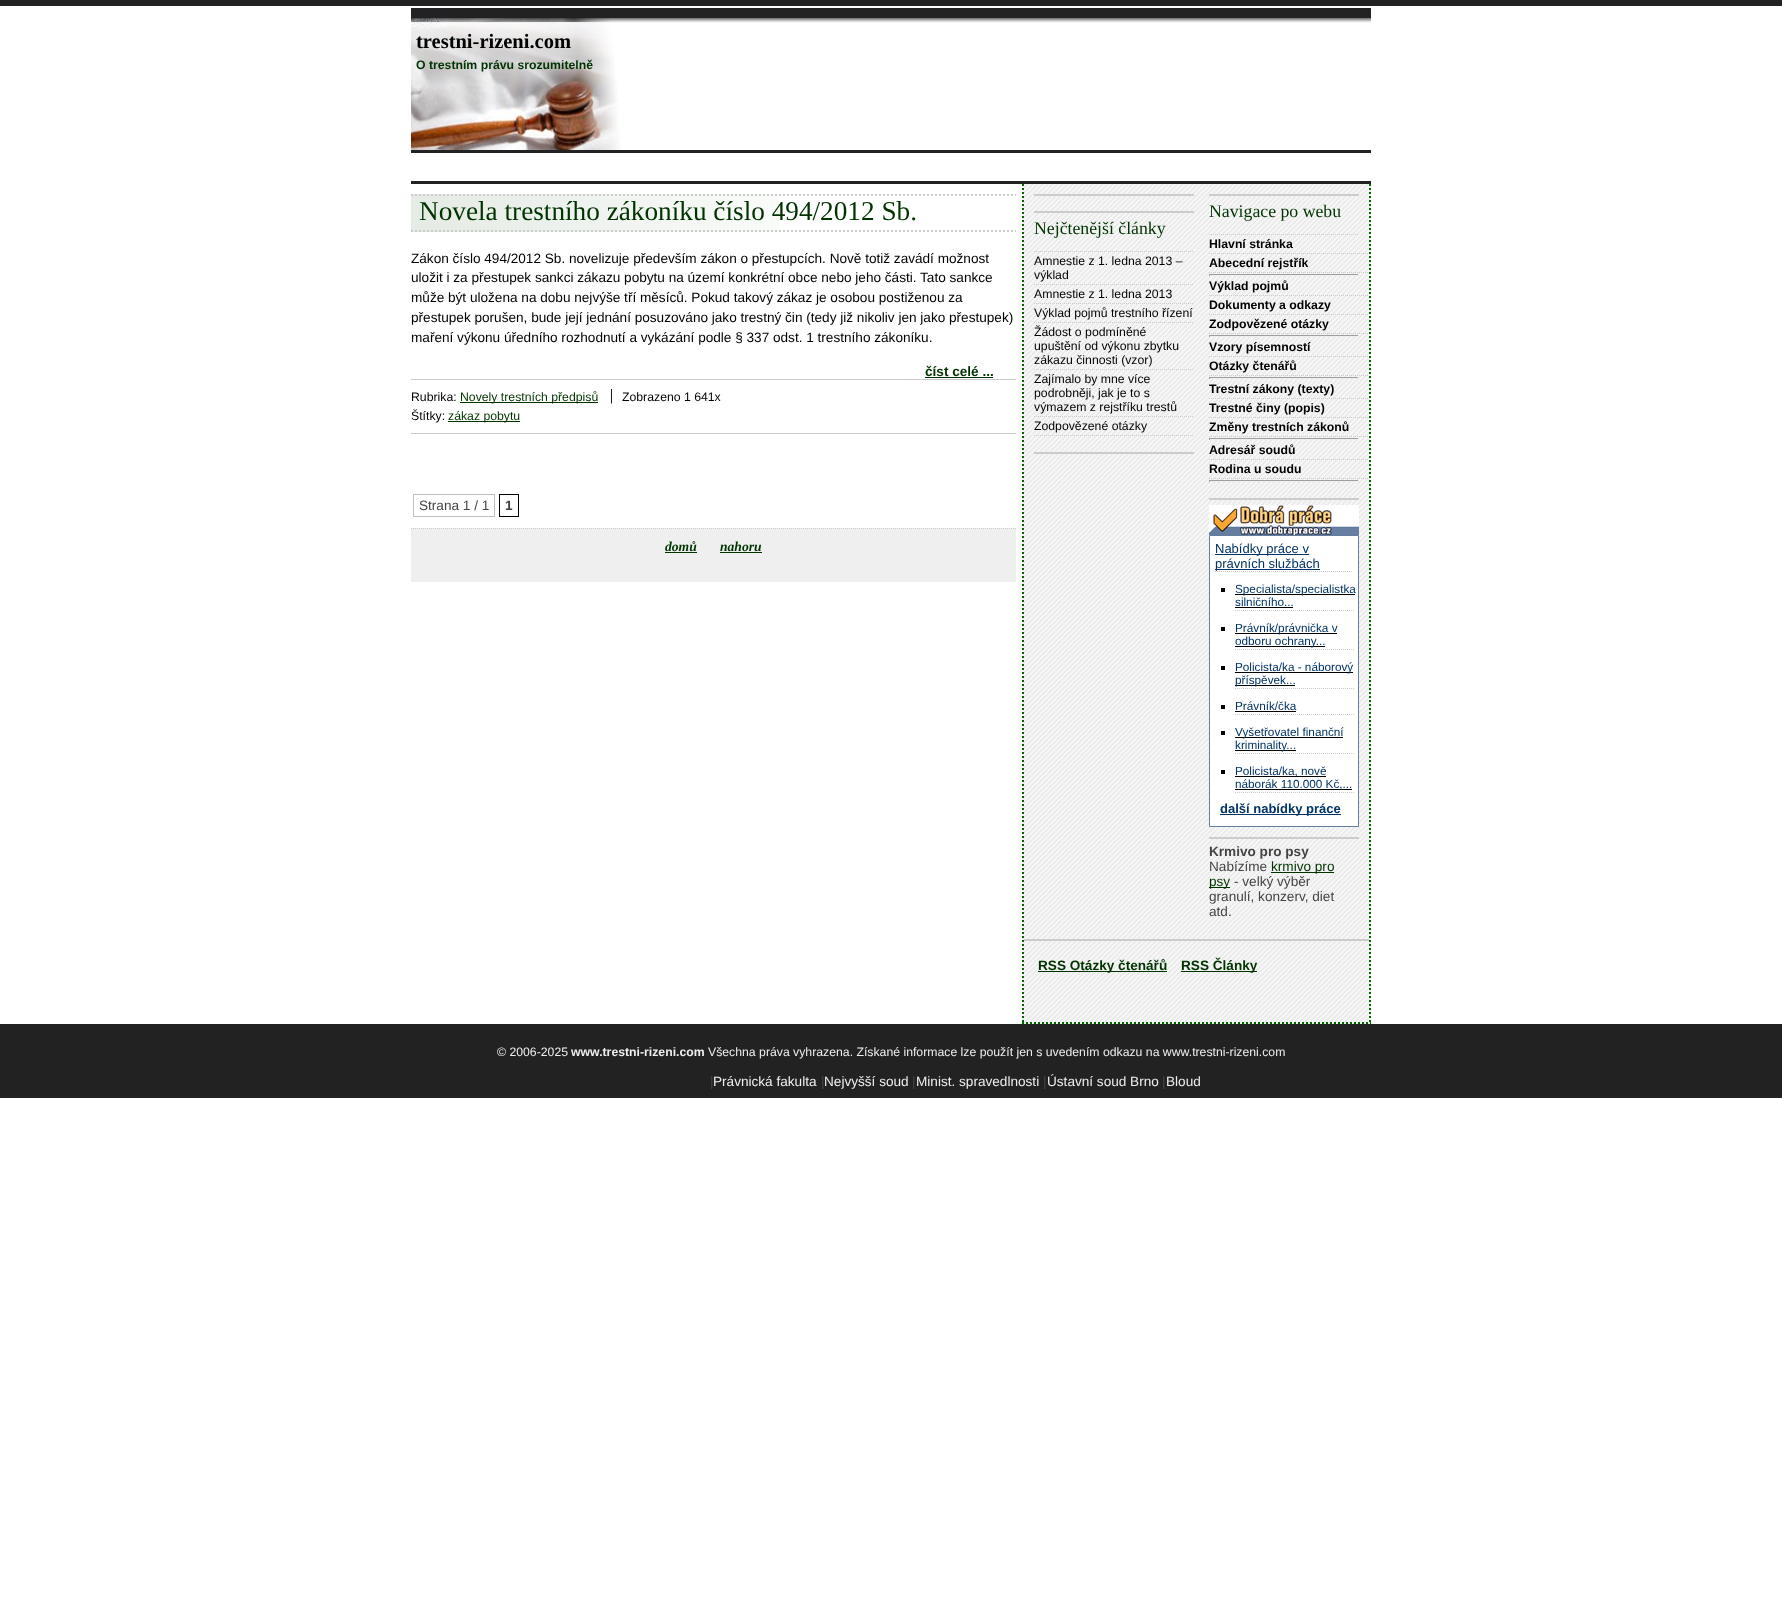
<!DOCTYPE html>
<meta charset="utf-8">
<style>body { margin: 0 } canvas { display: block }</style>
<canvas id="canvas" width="1782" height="1600"></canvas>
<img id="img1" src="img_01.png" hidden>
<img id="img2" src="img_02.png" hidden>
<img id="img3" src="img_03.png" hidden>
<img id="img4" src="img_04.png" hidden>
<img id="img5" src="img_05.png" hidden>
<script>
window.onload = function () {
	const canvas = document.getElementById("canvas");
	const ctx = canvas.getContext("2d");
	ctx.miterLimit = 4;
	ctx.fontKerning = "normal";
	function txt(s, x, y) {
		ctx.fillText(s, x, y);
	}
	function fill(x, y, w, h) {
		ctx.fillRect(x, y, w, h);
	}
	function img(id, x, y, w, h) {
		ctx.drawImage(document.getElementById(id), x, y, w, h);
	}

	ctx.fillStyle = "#FFFFFF";
	fill(0, 0, 1782, 1600);
	ctx.fillStyle = "#222222";
	fill(0, 0, 1782, 6);
	fill(411, 8, 960, 2);
	img("img1", 411, 10, 960, 140);
	fill(411, 150, 960, 3);
	fill(411, 181, 960, 3);
	img("img2", 411, 194, 368, 38);
	ctx.beginPath();
	ctx.moveTo(411, 195);
	ctx.lineTo(1016, 195);
	ctx.strokeStyle = "#CCCCCC";
	ctx.lineWidth = 2;
	ctx.setLineDash([2, 2]);
	ctx.stroke();
	ctx.beginPath();
	ctx.moveTo(411, 231);
	ctx.lineTo(1016, 231);
	ctx.stroke();
	ctx.fillStyle = "#003300";
	fill(925, 377, 68, 1);
	ctx.fillStyle = "#CCCCCC";
	fill(411, 379, 605, 1);
	fill(411, 433, 605, 1);
	ctx.fillStyle = "#003300";
	fill(460, 402, 138, 1);
	fill(448, 421, 72, 1);
	ctx.strokeStyle = "#BFBFBF";
	ctx.lineWidth = 1;
	ctx.setLineDash([]);
	ctx.strokeRect(413.5, 494.5, 81, 22);
	ctx.strokeStyle = "#000000";
	ctx.strokeRect(499.5, 494.5, 19, 22);
	ctx.fillStyle = "#EFEFEF";
	fill(411, 528, 605, 54);
	ctx.beginPath();
	ctx.moveTo(411, 528.5);
	ctx.lineTo(1016, 528.5);
	ctx.strokeStyle = "#CCCCCC";
	ctx.setLineDash([1, 1]);
	ctx.stroke();
	ctx.fillStyle = "#003300";
	fill(665, 552, 32, 1);
	fill(720, 552, 42, 1);
	img("img3", 1022, 184, 349, 840);
	ctx.beginPath();
	ctx.moveTo(1370, 184);
	ctx.lineTo(1370, 1024);
	ctx.strokeStyle = "#006600";
	ctx.lineWidth = 2;
	ctx.setLineDash([2, 2]);
	ctx.stroke();
	ctx.beginPath();
	ctx.moveTo(1022, 1023);
	ctx.lineTo(1371, 1023);
	ctx.stroke();
	ctx.beginPath();
	ctx.moveTo(1023, 184);
	ctx.lineTo(1023, 1024);
	ctx.stroke();
	ctx.fillStyle = "#CCCCCC";
	fill(1034, 194, 160, 2);
	fill(1034, 211, 160, 2);
	ctx.beginPath();
	ctx.moveTo(1034, 251.5);
	ctx.lineTo(1194, 251.5);
	ctx.strokeStyle = "#CCCCCC";
	ctx.lineWidth = 1;
	ctx.setLineDash([1, 1]);
	ctx.stroke();
	ctx.beginPath();
	ctx.moveTo(1034, 284.5);
	ctx.lineTo(1194, 284.5);
	ctx.stroke();
	ctx.beginPath();
	ctx.moveTo(1034, 303.5);
	ctx.lineTo(1194, 303.5);
	ctx.stroke();
	ctx.beginPath();
	ctx.moveTo(1034, 322.5);
	ctx.lineTo(1194, 322.5);
	ctx.stroke();
	ctx.beginPath();
	ctx.moveTo(1034, 369.5);
	ctx.lineTo(1194, 369.5);
	ctx.stroke();
	ctx.beginPath();
	ctx.moveTo(1034, 416.5);
	ctx.lineTo(1194, 416.5);
	ctx.stroke();
	ctx.beginPath();
	ctx.moveTo(1034, 435.5);
	ctx.lineTo(1194, 435.5);
	ctx.stroke();
	fill(1034, 452, 160, 2);
	fill(1209, 194, 150, 2);
	ctx.beginPath();
	ctx.moveTo(1209, 234.5);
	ctx.lineTo(1359, 234.5);
	ctx.stroke();
	ctx.beginPath();
	ctx.moveTo(1209, 253.5);
	ctx.lineTo(1369, 253.5);
	ctx.stroke();
	ctx.beginPath();
	ctx.moveTo(1209, 272.5);
	ctx.lineTo(1369, 272.5);
	ctx.stroke();
	ctx.fillStyle = "#9F9F9F";
	fill(1209, 274, 150, 1);
	ctx.fillStyle = "#EEEEEE";
	fill(1358, 274, 1, 2);
	fill(1209, 275, 150, 1);
	ctx.fillStyle = "#9F9F9F";
	fill(1209, 274, 1, 2);
	ctx.beginPath();
	ctx.moveTo(1209, 295.5);
	ctx.lineTo(1369, 295.5);
	ctx.stroke();
	ctx.beginPath();
	ctx.moveTo(1209, 314.5);
	ctx.lineTo(1369, 314.5);
	ctx.stroke();
	ctx.beginPath();
	ctx.moveTo(1209, 333.5);
	ctx.lineTo(1369, 333.5);
	ctx.stroke();
	fill(1209, 335, 150, 1);
	ctx.fillStyle = "#EEEEEE";
	fill(1358, 335, 1, 2);
	fill(1209, 336, 150, 1);
	ctx.fillStyle = "#9F9F9F";
	fill(1209, 335, 1, 2);
	ctx.beginPath();
	ctx.moveTo(1209, 356.5);
	ctx.lineTo(1369, 356.5);
	ctx.stroke();
	ctx.beginPath();
	ctx.moveTo(1209, 375.5);
	ctx.lineTo(1369, 375.5);
	ctx.stroke();
	fill(1209, 377, 150, 1);
	ctx.fillStyle = "#EEEEEE";
	fill(1358, 377, 1, 2);
	fill(1209, 378, 150, 1);
	ctx.fillStyle = "#9F9F9F";
	fill(1209, 377, 1, 2);
	ctx.beginPath();
	ctx.moveTo(1209, 398.5);
	ctx.lineTo(1369, 398.5);
	ctx.stroke();
	ctx.beginPath();
	ctx.moveTo(1209, 417.5);
	ctx.lineTo(1369, 417.5);
	ctx.stroke();
	ctx.beginPath();
	ctx.moveTo(1209, 436.5);
	ctx.lineTo(1369, 436.5);
	ctx.stroke();
	fill(1209, 438, 150, 1);
	ctx.fillStyle = "#EEEEEE";
	fill(1358, 438, 1, 2);
	fill(1209, 439, 150, 1);
	ctx.fillStyle = "#9F9F9F";
	fill(1209, 438, 1, 2);
	ctx.beginPath();
	ctx.moveTo(1209, 459.5);
	ctx.lineTo(1369, 459.5);
	ctx.stroke();
	ctx.beginPath();
	ctx.moveTo(1209, 478.5);
	ctx.lineTo(1369, 478.5);
	ctx.stroke();
	fill(1209, 480, 150, 1);
	ctx.fillStyle = "#EEEEEE";
	fill(1358, 480, 1, 2);
	fill(1209, 481, 150, 1);
	ctx.fillStyle = "#9F9F9F";
	fill(1209, 480, 1, 2);
	ctx.fillStyle = "#CCCCCC";
	fill(1209, 498, 150, 2);
	ctx.fillStyle = "#FFFFFF";
	fill(1332, 505, 27, 21);
	img("img4", 1332, 526, 27, 9);
	img("img5", 1209, 505, 123, 30);
	ctx.beginPath();
	ctx.rect(1209.5, 535.5, 149, 291);
	ctx.fill();
	ctx.strokeStyle = "#657D9F";
	ctx.setLineDash([]);
	ctx.stroke();
	ctx.fillStyle = "#003366";
	fill(1215, 554, 94, 1);
	fill(1215, 569, 105, 1);
	ctx.beginPath();
	ctx.moveTo(1215, 571.5);
	ctx.lineTo(1353, 571.5);
	ctx.strokeStyle = "#CCCCCC";
	ctx.setLineDash([1, 1]);
	ctx.stroke();
	ctx.beginPath();
	ctx.moveTo(1235, 610.5);
	ctx.lineTo(1355, 610.5);
	ctx.stroke();
	ctx.fillStyle = "#000000";
	fill(1221, 588, 4, 4);
	fill(1235, 594, 120, 1);
	fill(1235, 607, 58, 1);
	ctx.beginPath();
	ctx.moveTo(1235, 649.5);
	ctx.lineTo(1355, 649.5);
	ctx.stroke();
	fill(1221, 627, 4, 4);
	fill(1235, 633, 102, 1);
	fill(1235, 646, 90, 1);
	ctx.beginPath();
	ctx.moveTo(1235, 688.5);
	ctx.lineTo(1355, 688.5);
	ctx.stroke();
	fill(1221, 666, 4, 4);
	fill(1235, 672, 118, 1);
	fill(1235, 685, 60, 1);
	ctx.beginPath();
	ctx.moveTo(1235, 714.5);
	ctx.lineTo(1355, 714.5);
	ctx.stroke();
	fill(1221, 705, 4, 4);
	fill(1235, 711, 61, 1);
	ctx.beginPath();
	ctx.moveTo(1235, 753.5);
	ctx.lineTo(1355, 753.5);
	ctx.stroke();
	fill(1221, 731, 4, 4);
	fill(1235, 737, 108, 1);
	fill(1235, 750, 61, 1);
	ctx.beginPath();
	ctx.moveTo(1235, 792.5);
	ctx.lineTo(1355, 792.5);
	ctx.stroke();
	fill(1221, 770, 4, 4);
	fill(1235, 776, 91, 1);
	fill(1235, 789, 117, 1);
	ctx.fillStyle = "#003366";
	fill(1220, 814, 121, 1);
	ctx.fillStyle = "#CCCCCC";
	fill(1209, 837, 150, 2);
	ctx.fillStyle = "#003300";
	fill(1271, 872, 63, 1);
	fill(1209, 887, 21, 1);
	ctx.fillStyle = "#CCCCCC";
	fill(1024, 939, 345, 2);
	ctx.fillStyle = "#003300";
	fill(1038, 971, 129, 1);
	fill(1181, 971, 76, 1);
	ctx.fillStyle = "#222222";
	fill(0, 1024, 1782, 74);
	ctx.font = "bold 20.5px Liberation Serif";
	ctx.fillStyle = "#000000";
	txt("trestni-rizeni.com", 416, 48);
	ctx.font = "bold 12.25px Liberation Sans";
	ctx.fillStyle = "#003300";
	txt("O trestním právu srozumitelně", 416, 69);
	ctx.font = "27.25px Liberation Serif";
	txt("Novela trestního zákoníku číslo 494/2012 Sb.", 419, 220);
	ctx.font = "13.6px Liberation Sans";
	ctx.fillStyle = "#000000";
	txt("Zákon číslo 494/2012 Sb. novelizuje především zákon o přestupcích. Nově totiž zavádí možnost", 411, 263);
	txt("uložit i za přestupek sankci zákazu pobytu na území konkrétní obce nebo jeho části. Tato sankce", 411, 282);
	txt("může být uložena na dobu nejvýše tří měsíců. Pokud takový zákaz je osobou postiženou za", 411, 302);
	txt("přestupek porušen, bude její jednání posuzováno jako trestný čin (tedy již nikoliv jen jako přestupek)", 411, 322);
	txt("maření výkonu úředního rozhodnutí a vykázání podle § 337 odst. 1 trestního zákoníku.", 411, 342);
	ctx.font = "bold 13.6px Liberation Sans";
	ctx.fillStyle = "#003300";
	txt("číst celé ...", 925, 376);
	ctx.font = "12.25px Liberation Sans";
	ctx.fillStyle = "#000000";
	txt("Rubrika:", 411, 401);
	ctx.fillStyle = "#003300";
	txt("Novely trestních předpisů", 460, 401);
	ctx.direction = "rtl";
	ctx.fillStyle = "#000000";
	txt("׀", 615, 401);
	ctx.direction = "ltr";
	txt("Zobrazeno 1 641x", 622, 401);
	txt("Štítky:", 411, 420);
	ctx.fillStyle = "#003300";
	txt("zákaz pobytu", 448, 420);
	ctx.font = "13.6px Liberation Sans";
	ctx.fillStyle = "#444444";
	txt("Strana 1 / 1", 419, 510);
	ctx.font = "bold 13.6px Liberation Sans";
	txt("1", 505, 510);
	ctx.font = "italic bold 13.6px Liberation Serif";
	ctx.fillStyle = "#003300";
	txt("domů", 665, 551);
	txt("nahoru", 720, 551);
	ctx.font = "17.75px Liberation Serif";
	txt("Nejčtenější články", 1034, 234);
	ctx.font = "12.25px Liberation Sans";
	ctx.fillStyle = "#000000";
	txt("Amnestie z 1. ledna 2013 –", 1034, 265);
	txt("výklad", 1034, 279);
	txt("Amnestie z 1. ledna 2013", 1034, 298);
	txt("Výklad pojmů trestního řízení", 1034, 317);
	txt("Žádost o podmíněné", 1034, 336);
	txt("upuštění od výkonu zbytku", 1034, 350);
	txt("zákazu činnosti (vzor)", 1034, 364);
	txt("Zajímalo by mne více", 1034, 383);
	txt("podrobněji, jak je to s", 1034, 397);
	txt("výmazem z rejstříku trestů", 1034, 411);
	txt("Zodpovězené otázky", 1034, 430);
	ctx.font = "17.75px Liberation Serif";
	ctx.fillStyle = "#003300";
	txt("Navigace po webu", 1209, 217);
	ctx.font = "bold 12.25px Liberation Sans";
	ctx.fillStyle = "#000000";
	txt("Hlavní stránka", 1209, 248);
	txt("Abecední rejstřík", 1209, 267);
	txt("Výklad pojmů", 1209, 290);
	txt("Dokumenty a odkazy", 1209, 309);
	txt("Zodpovězené otázky", 1209, 328);
	txt("Vzory písemností", 1209, 351);
	txt("Otázky čtenářů", 1209, 370);
	txt("Trestní zákony (texty)", 1209, 393);
	txt("Trestné činy (popis)", 1209, 412);
	txt("Změny trestních zákonů", 1209, 431);
	txt("Adresář soudů", 1209, 454);
	txt("Rodina u soudu", 1209, 473);
	ctx.font = "13px Liberation Sans";
	ctx.fillStyle = "#003366";
	txt("Nabídky práce v", 1215, 553);
	txt("právních službách", 1215, 568);
	ctx.font = "11.75px Liberation Sans";
	txt("Specialista/specialistka", 1235, 593);
	txt("silničního...", 1235, 606);
	txt("Právník/právnička v", 1235, 632);
	txt("odboru ochrany...", 1235, 645);
	txt("Policista/ka - náborový", 1235, 671);
	txt("příspěvek...", 1235, 684);
	txt("Právník/čka", 1235, 710);
	txt("Vyšetřovatel finanční", 1235, 736);
	txt("kriminality...", 1235, 749);
	txt("Policista/ka, nově", 1235, 775);
	txt("náborák 110.000 Kč,...", 1235, 788);
	ctx.font = "bold 13px Liberation Sans";
	txt("další nabídky práce", 1220, 813);
	ctx.font = "bold 13.6px Liberation Sans";
	ctx.fillStyle = "#444444";
	txt("Krmivo pro psy", 1209, 856);
	ctx.font = "13.6px Liberation Sans";
	txt("Nabízíme", 1209, 871);
	ctx.fillStyle = "#003300";
	txt("krmivo pro", 1271, 871);
	txt("psy", 1209, 886);
	ctx.fillStyle = "#444444";
	txt("- velký výběr", 1234, 886);
	txt("granulí, konzerv, diet", 1209, 901);
	txt("atd.", 1209, 916);
	ctx.font = "bold 13.6px Liberation Sans";
	ctx.fillStyle = "#003300";
	txt("RSS Otázky čtenářů", 1038, 970);
	txt("RSS Články", 1181, 970);
	ctx.font = "12.25px Liberation Sans";
	ctx.fillStyle = "#EEEEEE";
	txt("© 2006-2025", 497, 1056);
	ctx.font = "bold 12.25px Liberation Sans";
	txt("www.trestni-rizeni.com", 571, 1056);
	ctx.font = "12.25px Liberation Sans";
	txt("Všechna práva vyhrazena. Získané informace lze použít jen s uvedením odkazu na www.trestni-rizeni.com", 708, 1056);
	ctx.font = "13.6px Liberation Sans";
	ctx.fillStyle = "#444444";
	txt("|", 710, 1086);
	ctx.fillStyle = "#EEEEEE";
	txt("Právnická fakulta", 713, 1086);
	ctx.fillStyle = "#444444";
	txt("|", 821, 1086);
	ctx.fillStyle = "#EEEEEE";
	txt("Nejvyšší soud", 824, 1086);
	ctx.fillStyle = "#444444";
	txt("|", 912, 1086);
	ctx.fillStyle = "#EEEEEE";
	txt("Minist. spravedlnosti", 916, 1086);
	ctx.fillStyle = "#444444";
	txt("|", 1043, 1086);
	ctx.fillStyle = "#EEEEEE";
	txt("Ústavní soud Brno", 1047, 1086);
	ctx.fillStyle = "#444444";
	txt("|", 1162, 1086);
	ctx.fillStyle = "#EEEEEE";
	txt("Bloud", 1166, 1086);
};
</script>
